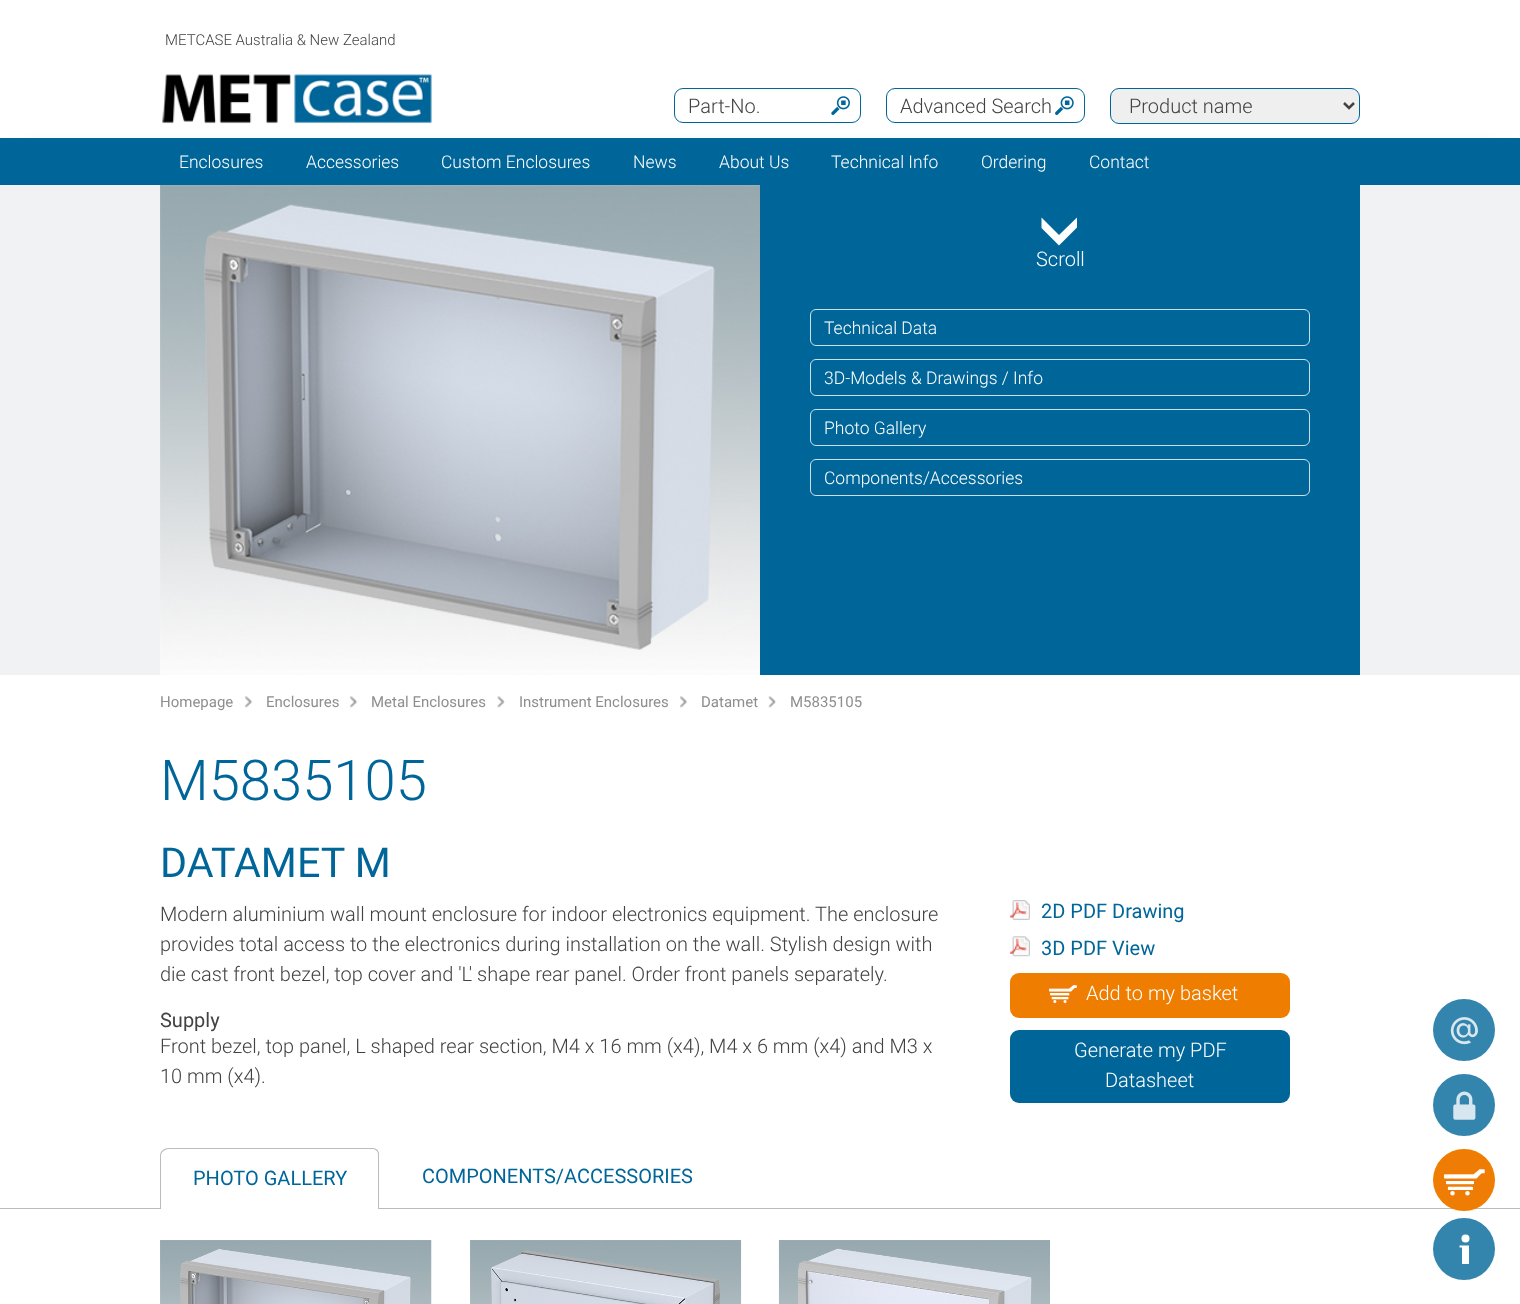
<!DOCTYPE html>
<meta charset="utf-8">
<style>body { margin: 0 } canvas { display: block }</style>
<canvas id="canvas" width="1520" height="1304"></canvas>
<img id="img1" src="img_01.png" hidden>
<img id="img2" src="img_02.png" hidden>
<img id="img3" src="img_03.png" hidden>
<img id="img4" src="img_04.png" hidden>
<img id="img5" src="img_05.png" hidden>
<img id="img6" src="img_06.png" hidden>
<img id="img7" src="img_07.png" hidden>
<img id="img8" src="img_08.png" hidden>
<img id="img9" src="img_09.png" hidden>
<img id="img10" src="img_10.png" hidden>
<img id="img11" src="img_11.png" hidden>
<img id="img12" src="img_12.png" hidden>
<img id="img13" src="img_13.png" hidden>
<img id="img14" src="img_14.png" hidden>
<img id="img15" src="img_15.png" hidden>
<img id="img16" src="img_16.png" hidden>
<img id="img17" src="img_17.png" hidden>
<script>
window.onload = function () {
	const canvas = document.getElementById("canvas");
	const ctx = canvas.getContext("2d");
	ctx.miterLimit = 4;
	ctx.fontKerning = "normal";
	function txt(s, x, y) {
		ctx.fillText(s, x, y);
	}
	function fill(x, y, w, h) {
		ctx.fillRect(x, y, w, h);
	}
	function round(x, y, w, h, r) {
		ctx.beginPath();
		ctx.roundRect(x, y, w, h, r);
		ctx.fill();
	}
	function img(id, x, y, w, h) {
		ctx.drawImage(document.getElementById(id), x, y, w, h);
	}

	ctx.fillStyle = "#FFFFFF";
	fill(0, 0, 1520, 1304);
	ctx.fillStyle = "rgba(0, 0, 0, 0.75)";
	ctx.filter = "blur(14px)";
	ctx.beginPath();
	ctx.rect(15, 163, 1490, 17);
	ctx.fill();
	ctx.filter = "none";
	img("img1", 162, 74, 270, 50);
	img("img2", 831, 96, 19, 19);
	ctx.beginPath();
	ctx.roundRect(674.5, 88.5, 186, 34, 8.5);
	ctx.strokeStyle = "#006699";
	ctx.stroke();
	img("img3", 1055, 96, 19, 19);
	ctx.beginPath();
	ctx.roundRect(886.5, 88.5, 198, 34, 8.5);
	ctx.stroke();
	ctx.fillStyle = "#EFEFEF";
	ctx.beginPath();
	ctx.roundRect(1110.5, 88.5, 249, 35, 8.5);
	ctx.fill();
	ctx.stroke();
	ctx.beginPath();
	ctx.moveTo(1344, 103);
	ctx.lineTo(1349, 108);
	ctx.lineTo(1354, 103);
	ctx.strokeStyle = "#424242";
	ctx.lineWidth = 2.5;
	ctx.stroke();
	ctx.fillStyle = "#006699";
	fill(0, 138, 1520, 47);
	ctx.fillStyle = "#F1F2F3";
	fill(0, 185, 1520, 490);
	img("img4", 160, 185, 600, 490);
	ctx.fillStyle = "#006699";
	fill(760, 185, 600, 490);
	ctx.fillStyle = "#FFFFFF";
	ctx.beginPath();
	ctx.moveTo(1041.5, 217.5);
	ctx.lineTo(1059, 235);
	ctx.lineTo(1077, 217.5);
	ctx.lineTo(1077, 227.5);
	ctx.lineTo(1059, 245.5);
	ctx.lineTo(1041.5, 228);
	ctx.closePath();
	ctx.fill();
	ctx.beginPath();
	ctx.roundRect(810.5, 309.5, 499, 36, 5.5);
	ctx.strokeStyle = "#CCE0EB";
	ctx.lineWidth = 1;
	ctx.stroke();
	ctx.beginPath();
	ctx.roundRect(810.5, 359.5, 499, 36, 5.5);
	ctx.stroke();
	ctx.beginPath();
	ctx.roundRect(810.5, 409.5, 499, 36, 5.5);
	ctx.stroke();
	ctx.beginPath();
	ctx.roundRect(810.5, 459.5, 499, 36, 5.5);
	ctx.stroke();
	img("img5", 245, 696, 8, 12);
	img("img5", 350, 696, 8, 12);
	img("img6", 497, 696, 8, 12);
	img("img7", 680, 696, 8, 12);
	img("img8", 768, 696, 8, 12);
	img("img9", 1010, 900, 20, 20);
	img("img10", 1010, 936, 20, 21);
	ctx.fillStyle = "#EF7D00";
	round(1010, 973, 280, 45, 9);
	img("img11", 1044, 974, 37, 37);
	ctx.fillStyle = "#006699";
	round(1010, 1030, 280, 73, 9);
	ctx.fillStyle = "#BBBBBB";
	fill(0, 1208, 1520, 1);
	ctx.fillStyle = "#FFFFFF";
	ctx.beginPath();
	ctx.roundRect(160, 1148, 219, 61, [9, 6, 0, 0]);
	ctx.fill();
	ctx.fillStyle = "#BBBBBB";
	ctx.beginPath();
	ctx.moveTo(169, 1148);
	ctx.lineTo(372, 1148);
	ctx.bezierCurveTo(376, 1148, 379, 1150, 379, 1154);
	ctx.lineTo(379, 1209);
	ctx.lineTo(160, 1209);
	ctx.lineTo(160, 1156);
	ctx.bezierCurveTo(160, 1151, 164, 1148, 169, 1148);
	ctx.closePath();
	ctx.moveTo(169, 1149);
	ctx.lineTo(372, 1149);
	ctx.bezierCurveTo(375, 1149, 378, 1151, 378, 1154);
	ctx.lineTo(378, 1209);
	ctx.lineTo(161, 1209);
	ctx.lineTo(161, 1156);
	ctx.bezierCurveTo(161, 1152, 165, 1149, 169, 1149);
	ctx.closePath();
	ctx.fill("evenodd");
	img("img12", 160, 1240, 272, 64);
	img("img13", 470, 1240, 272, 64);
	img("img14", 778, 1240, 272, 64);
	ctx.fillStyle = "#3385AD";
	ctx.beginPath();
	ctx.arc(1464, 1030, 31, 0, Math.PI * 2);
	ctx.fill();
	img("img15", 1450, 1017, 28, 28);
	ctx.beginPath();
	ctx.arc(1464, 1105, 31, 0, Math.PI * 2);
	ctx.fill();
	img("img16", 1453, 1091, 23, 29);
	ctx.fillStyle = "#EF7D00";
	ctx.beginPath();
	ctx.arc(1464, 1180, 31, 0, Math.PI * 2);
	ctx.fill();
	img("img17", 1437, 1153, 54, 54);
	ctx.fillStyle = "#3385AD";
	ctx.beginPath();
	ctx.arc(1464, 1249, 31, 0, Math.PI * 2);
	ctx.fill();
	ctx.fillStyle = "#FFFFFF";
	ctx.beginPath();
	ctx.moveTo(1462, 1245.5);
	ctx.lineTo(1459.5, 1245.5);
	ctx.lineTo(1459.5, 1247.5);
	ctx.lineTo(1462, 1247.5);
	ctx.lineTo(1462, 1264);
	ctx.lineTo(1469, 1264);
	ctx.lineTo(1469, 1245.5);
	ctx.closePath();
	ctx.fill();
	ctx.beginPath();
	ctx.arc(1465.5, 1238.5, 4, 0, Math.PI * 2);
	ctx.fill();
	ctx.font = "300 15px Roboto";
	ctx.fillStyle = "#424242";
	txt("METCASE Australia & New Zealand", 165, 45);
	ctx.font = "300 20px Roboto";
	txt("Part-No.", 688, 113);
	txt("Advanced Search", 900, 113);
	txt("Product name", 1129, 113);
	ctx.font = "300 17.5px Roboto";
	ctx.fillStyle = "#FFFFFF";
	txt("Enclosures", 179, 168);
	txt("Accessories", 306, 168);
	txt("Custom Enclosures", 441, 168);
	txt("News", 633, 168);
	txt("About Us", 719, 168);
	txt("Technical Info", 831, 168);
	txt("Ordering", 981, 168);
	txt("Contact", 1089, 168);
	ctx.font = "300 20px Roboto";
	txt("Scroll", 1036, 266);
	ctx.font = "300 17.5px Roboto";
	txt("Technical Data", 824, 334);
	txt("3D-Models & Drawings / Info", 824, 384);
	txt("Photo Gallery", 824, 434);
	txt("Components/Accessories", 824, 484);
	ctx.font = "15px Roboto";
	ctx.fillStyle = "#8E8E8E";
	txt("Homepage", 160, 707);
	txt("Enclosures", 266, 707);
	txt("Metal Enclosures", 371, 707);
	txt("Instrument Enclosures", 519, 707);
	txt("Datamet", 701, 707);
	txt("M5835105", 790, 707);
	ctx.font = "300 56.25px Roboto";
	ctx.fillStyle = "#006699";
	txt("M5835105", 160, 800);
	ctx.font = "41.25px Roboto";
	txt("DATAMET M", 160, 877);
	ctx.font = "300 20px Roboto";
	ctx.fillStyle = "#424242";
	txt("Modern aluminium wall mount enclosure for indoor electronics equipment. The enclosure", 160, 921);
	txt("provides total access to the electronics during installation on the wall. Stylish design with", 160, 951);
	txt("die cast front bezel, top cover and 'L' shape rear panel. Order front panels separately.", 160, 981);
	ctx.font = "20px Roboto";
	txt("Supply", 160, 1027);
	ctx.font = "300 20px Roboto";
	txt("Front bezel, top panel, L shaped rear section, M4 x 16 mm (x4), M4 x 6 mm (x4) and M3 x", 160, 1053);
	txt("10 mm (x4).", 160, 1083);
	ctx.font = "20px Roboto";
	ctx.fillStyle = "#006699";
	txt("2D PDF Drawing", 1041, 918);
	txt("3D PDF View", 1041, 955);
	ctx.font = "300 20px Roboto";
	ctx.fillStyle = "#FFFFFF";
	txt("Add to my basket", 1086, 1000);
	txt("Generate my PDF", 1074, 1057);
	txt("Datasheet", 1105, 1087);
	ctx.font = "20px Roboto";
	ctx.fillStyle = "#006699";
	txt("PHOTO GALLERY", 193, 1185);
	txt("COMPONENTS/ACCESSORIES", 422, 1183);
};
</script>
